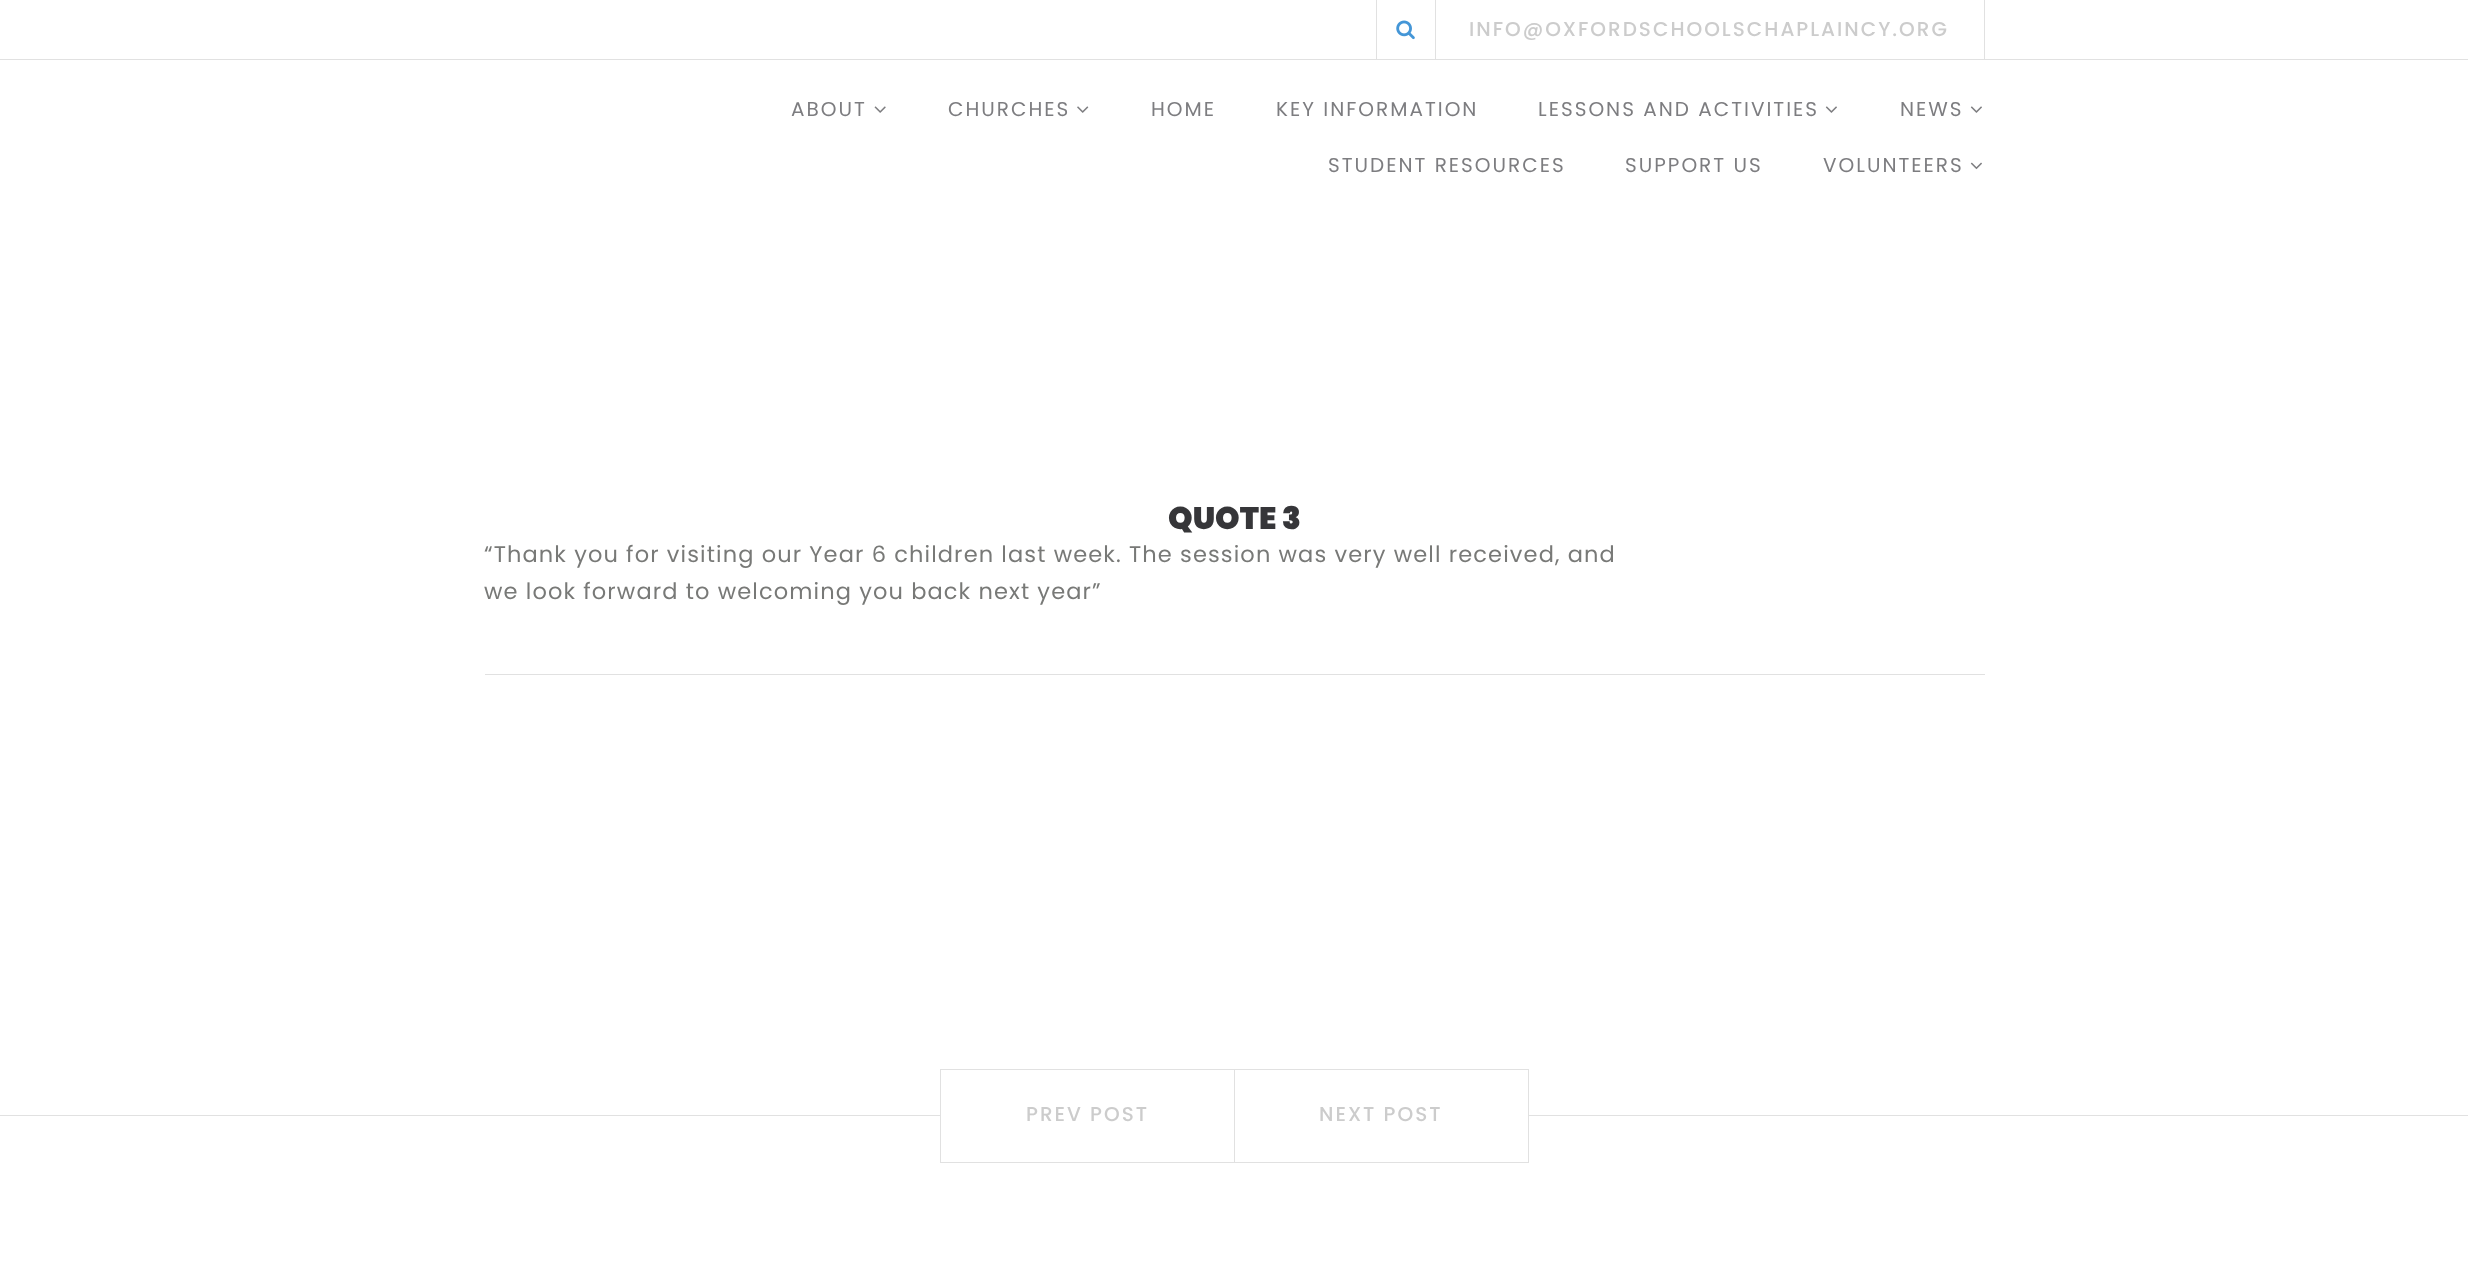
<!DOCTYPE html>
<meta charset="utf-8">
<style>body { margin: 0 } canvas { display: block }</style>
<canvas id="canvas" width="2468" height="1261"></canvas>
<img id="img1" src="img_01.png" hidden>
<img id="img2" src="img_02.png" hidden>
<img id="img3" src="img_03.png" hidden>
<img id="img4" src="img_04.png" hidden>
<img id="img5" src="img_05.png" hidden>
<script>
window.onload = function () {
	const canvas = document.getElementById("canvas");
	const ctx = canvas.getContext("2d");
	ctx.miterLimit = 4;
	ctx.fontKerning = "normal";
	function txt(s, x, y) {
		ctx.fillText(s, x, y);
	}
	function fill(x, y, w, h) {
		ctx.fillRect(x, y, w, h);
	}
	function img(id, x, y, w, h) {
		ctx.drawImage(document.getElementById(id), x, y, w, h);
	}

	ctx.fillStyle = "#FFFFFF";
	fill(0, 0, 2468, 1261);
	ctx.fillStyle = "#E1E1E1";
	fill(1435, 0, 1, 60);
	fill(1376, 0, 1, 60);
	img("img1", 1396, 20, 19, 20);
	fill(1984, 0, 1, 60);
	fill(0, 59, 2468, 1);
	img("img2", 874, 106, 12, 7);
	img("img3", 1077, 106, 12, 7);
	img("img4", 1825, 106, 12, 7);
	img("img4", 1970, 106, 12, 7);
	img("img5", 1970, 162, 12, 8);
	fill(485, 674, 1500, 1);
	fill(0, 1115, 2468, 1);
	ctx.fillStyle = "#FFFFFF";
	fill(941, 1115, 293, 1);
	ctx.strokeStyle = "#E1E1E1";
	ctx.strokeRect(940.5, 1069.5, 294, 93);
	fill(1235, 1115, 293, 1);
	ctx.strokeRect(1234.5, 1069.5, 294, 93);
	ctx.letterSpacing = "2px";
	ctx.font = "500 20px Poppins";
	ctx.fillStyle = "#CCCCCC";
	txt("INFO@OXFORDSCHOOLSCHAPLAINCY.ORG", 1469, 36);
	ctx.font = "20px Poppins";
	ctx.fillStyle = "#7D7D80";
	txt("ABOUT", 791, 116);
	txt("CHURCHES", 948, 116);
	txt("HOME", 1151, 116);
	txt("KEY INFORMATION", 1276, 116);
	txt("LESSONS AND ACTIVITIES", 1538, 116);
	txt("NEWS", 1900, 116);
	txt("STUDENT RESOURCES", 1328, 172);
	txt("SUPPORT US", 1625, 172);
	txt("VOLUNTEERS", 1823, 172);
	ctx.letterSpacing = "0px";
	ctx.font = "900 31.25px Poppins";
	ctx.fillStyle = "#363639";
	txt("QUOTE 3", 1168, 529);
	ctx.letterSpacing = "1.12px";
	ctx.font = "22.5px Poppins";
	ctx.fillStyle = "#787977";
	txt("“Thank you for visiting our Year 6 children last week. The session was very well received, and", 484, 562);
	txt("we look forward to welcoming you back next year”", 484, 599);
	ctx.letterSpacing = "2px";
	ctx.font = "500 20px Poppins";
	ctx.fillStyle = "#CCCCCC";
	txt("PREV POST", 1026, 1121);
	txt("NEXT POST", 1319, 1121);
};
</script>
